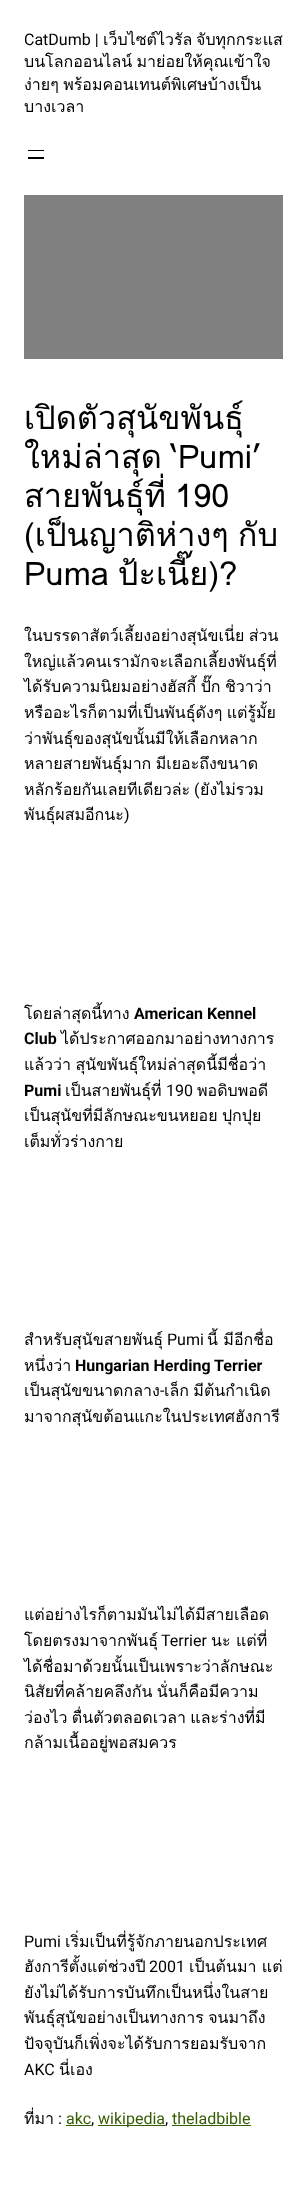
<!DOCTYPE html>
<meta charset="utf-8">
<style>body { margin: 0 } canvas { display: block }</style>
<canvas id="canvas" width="307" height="2210"></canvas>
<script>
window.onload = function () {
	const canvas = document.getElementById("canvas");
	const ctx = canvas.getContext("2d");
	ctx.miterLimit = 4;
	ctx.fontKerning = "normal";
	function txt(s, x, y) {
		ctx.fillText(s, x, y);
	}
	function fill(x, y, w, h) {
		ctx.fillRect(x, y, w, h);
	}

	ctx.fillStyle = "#FFFFFF";
	fill(0, 0, 307, 2210);
	ctx.fillStyle = "#000000";
	fill(28, 150, 16, 1);
	fill(28, 157, 16, 2);
	ctx.fillStyle = "#808080";
	fill(24, 195, 259, 164);
	ctx.fillStyle = "#345C00";
	fill(66, 2125, 25, 1);
	fill(98, 2125, 67, 1);
	fill(172, 2125, 79, 1);
	ctx.font = "16px Roboto";
	ctx.fillStyle = "#000000";
	txt("CatDumb |", 24, 45);
	ctx.font = "16px Loma";
	txt("เว็บไซต์ไวรัล", 103, 45);
	txt("จับทุกกระแส", 196, 45);
	ctx.wordSpacing = "-1px";
	txt("บนโลกออนไลน์ มาย่อยให้คุณเข้าใจ", 24, 67);
	txt("ง่ายๆ พร้อมคอนเทนต์พิเศษบ้างเป็น", 24, 90);
	ctx.wordSpacing = "0px";
	txt("บางเวลา", 24, 112);
	ctx.font = "32.5px Loma";
	txt("เปิดตัวสุนัขพันธุ์", 24, 429);
	ctx.wordSpacing = "-2px";
	txt("ใหม่ล่าสุด ‘Pumi’", 24, 468);
	txt("สายพันธุ์ที่ 190", 24, 507);
	txt("(เป็นญาติห่างๆ กับ", 24, 546);
	txt("Puma ป้ะเนี๊ย)?", 24, 585);
	ctx.wordSpacing = "-1px";
	ctx.font = "16px Loma";
	txt("ในบรรดาสัตว์เลี้ยงอย่างสุนัขเนี่ย ส่วน", 24, 641);
	ctx.wordSpacing = "0px";
	txt("ใหญ่แล้วคนเรามักจะเลือกเลี้ยงพันธุ์ที่", 24, 667);
	ctx.wordSpacing = "-1px";
	txt("ได้รับความนิยมอย่างฮัสกี้ ปั๊ก ชิวาว่า", 24, 692);
	txt("หรืออะไรก็ตามที่เป็นพันธุ์ดังๆ แต่รู้มั้ย", 24, 718);
	ctx.wordSpacing = "0px";
	txt("ว่าพันธุ์ของสุนัขนั้นมีให้เลือกหลาก", 24, 744);
	ctx.wordSpacing = "-1px";
	txt("หลายสายพันธุ์มาก มีเยอะถึงขนาด", 24, 769);
	ctx.wordSpacing = "0px";
	txt("หลักร้อยกันเลยทีเดียวล่ะ", 24, 795);
	ctx.font = "16px Roboto";
	txt("(", 194, 795);
	ctx.font = "16px Loma";
	txt("ยังไม่รวม", 200, 795);
	txt("พันธุ์ผสมอีกนะ", 24, 820);
	ctx.font = "16px Roboto";
	txt(")", 124, 820);
	ctx.font = "16px Loma";
	txt("โดยล่าสุดนี้ทาง", 24, 1019);
	ctx.font = "bold 16px Roboto";
	txt("American Kennel", 134, 1019);
	txt("Club", 24, 1044);
	ctx.font = "16px Loma";
	txt("ได้ประกาศออกมาอย่างทางการ", 61, 1044);
	ctx.wordSpacing = "-1px";
	txt("แล้วว่า สุนัขพันธุ์ใหม่ล่าสุดนี้มีชื่อว่า", 24, 1070);
	ctx.wordSpacing = "0px";
	ctx.font = "bold 16px Roboto";
	txt("Pumi", 24, 1096);
	ctx.font = "16px Loma";
	txt("เป็นสายพันธุ์ที่", 65, 1096);
	ctx.font = "16px Roboto";
	txt("190", 166, 1096);
	ctx.font = "16px Loma";
	txt("พอดิบพอดี", 197, 1096);
	ctx.wordSpacing = "-1px";
	txt("เป็นสุนัขที่มีลักษณะขนหยอย ปุกปุย", 24, 1121);
	ctx.wordSpacing = "0px";
	txt("เต็มทั่วร่างกาย", 24, 1147);
	txt("สำหรับสุนัขสายพันธุ์", 24, 1345);
	ctx.font = "16px Roboto";
	txt("Pumi", 167, 1345);
	ctx.font = "16px Loma";
	txt("นี้ มีอีกชื่อ", 207, 1345);
	txt("หนึ่งว่า", 24, 1371);
	ctx.font = "bold 16px Roboto";
	txt("Hungarian Herding Terrier", 75, 1371);
	ctx.font = "16px Loma";
	txt("เป็นสุนัขขนาดกลาง", 24, 1396);
	ctx.font = "16px Roboto";
	txt("-", 160, 1396);
	ctx.wordSpacing = "-1px";
	ctx.font = "16px Loma";
	txt("เล็ก มีต้นกำเนิด", 164, 1396);
	ctx.wordSpacing = "0px";
	txt("มาจากสุนัขต้อนแกะในประเทศฮังการี", 24, 1422);
	txt("แต่อย่างไรก็ตามมันไม่ได้มีสายเลือด", 24, 1620);
	txt("โดยตรงมาจากพันธุ์", 24, 1646);
	ctx.font = "16px Roboto";
	txt("Terrier", 161, 1646);
	ctx.font = "16px Loma";
	txt("นะ แต่ที่", 211, 1646);
	txt("ได้ชื่อมาด้วยนั้นเป็นเพราะว่าลักษณะ", 24, 1672);
	ctx.wordSpacing = "-1px";
	txt("นิสัยที่คล้ายคลึงกัน นั่นก็คือมีความ", 24, 1697);
	txt("ว่องไว ตื่นตัวตลอดเวลา และร่างที่มี", 24, 1723);
	ctx.wordSpacing = "0px";
	txt("กล้ามเนื้ออยู่พอสมควร", 24, 1748);
	ctx.font = "16px Roboto";
	txt("Pumi", 24, 1947);
	ctx.font = "16px Loma";
	txt("เริ่มเป็นที่รู้จักภายนอกประเทศ", 65, 1947);
	txt("ฮังการีตั้งแต่ช่วงปี", 24, 1972);
	ctx.font = "16px Roboto";
	txt("2001", 149, 1972);
	ctx.font = "16px Loma";
	txt("เป็นต้นมา แต่", 189, 1972);
	txt("ยังไม่ได้รับการบันทึกเป็นหนึ่งในสาย", 24, 1998);
	ctx.wordSpacing = "-1px";
	txt("พันธุ์สุนัขอย่างเป็นทางการ จนมาถึง", 24, 2023);
	ctx.wordSpacing = "0px";
	txt("ปัจจุบันก็เพิ่งจะได้รับการยอมรับจาก", 24, 2049);
	ctx.font = "16px Roboto";
	txt("AKC", 24, 2075);
	ctx.font = "16px Loma";
	txt("นี่เอง", 59, 2075);
	txt("ที่มา", 24, 2124);
	ctx.font = "16px Roboto";
	txt(":", 58, 2124);
	ctx.fillStyle = "#345C00";
	txt("akc", 66, 2124);
	ctx.fillStyle = "#000000";
	txt(",", 91, 2124);
	ctx.fillStyle = "#345C00";
	txt("wikipedia", 98, 2124);
	ctx.fillStyle = "#000000";
	txt(",", 165, 2124);
	ctx.fillStyle = "#345C00";
	txt("theladbible", 172, 2124);
};
</script>
